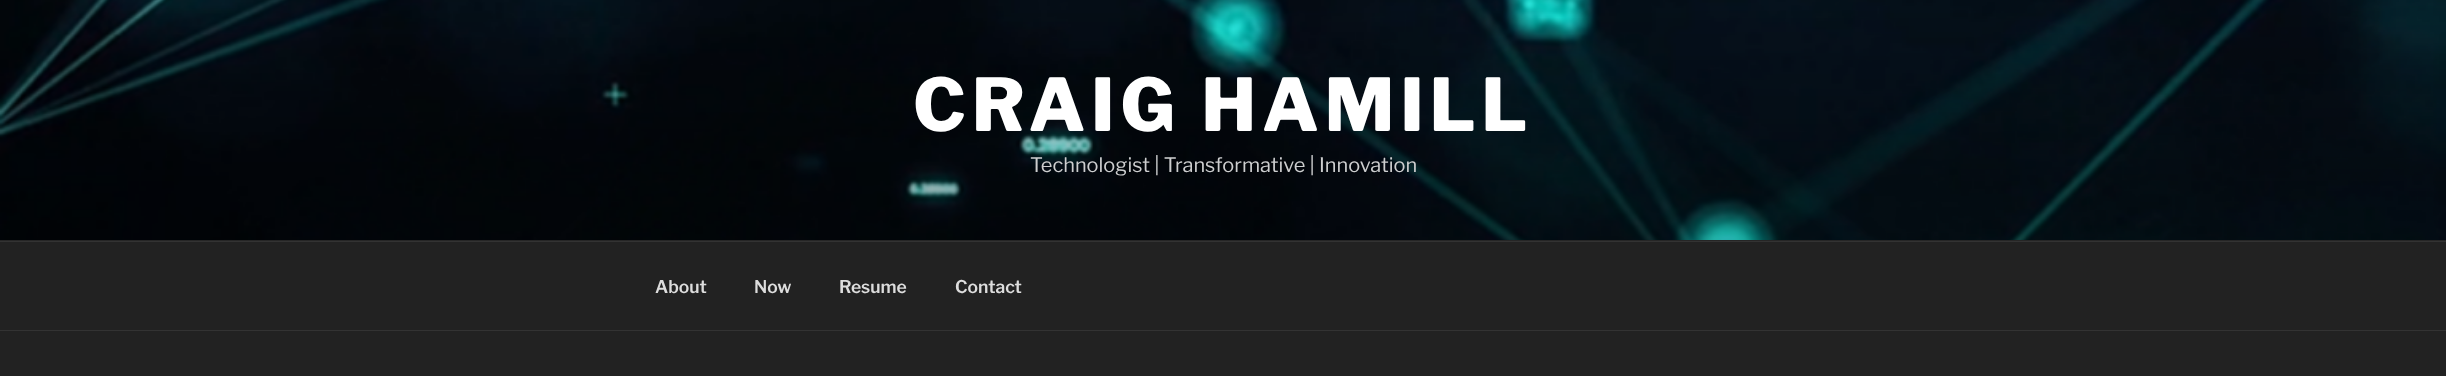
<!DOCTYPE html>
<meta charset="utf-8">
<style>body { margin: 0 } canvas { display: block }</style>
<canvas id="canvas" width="2446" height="376"></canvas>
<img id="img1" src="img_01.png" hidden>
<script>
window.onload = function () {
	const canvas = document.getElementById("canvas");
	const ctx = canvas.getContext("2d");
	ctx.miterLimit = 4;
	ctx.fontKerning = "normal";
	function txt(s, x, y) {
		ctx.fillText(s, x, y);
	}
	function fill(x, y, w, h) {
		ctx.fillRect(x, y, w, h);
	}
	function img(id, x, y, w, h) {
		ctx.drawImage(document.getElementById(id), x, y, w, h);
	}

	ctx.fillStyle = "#222222";
	fill(0, 0, 2446, 376);
	ctx.fillStyle = "#262626";
	fill(0, 240, 2446, 1);
	img("img1", 0, 0, 2446, 240);
	ctx.fillStyle = "#333333";
	fill(0, 241, 2446, 1);
	fill(0, 330, 2446, 1);
	ctx.letterSpacing = "5.75px";
	ctx.font = "100 72.5px Libre Franklin";
	ctx.fillStyle = "#FFFFFF";
	txt("CRAIG HAMILL", 913, 131);
	ctx.letterSpacing = "0px";
	ctx.font = "100 20px 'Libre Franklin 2'";
	ctx.fillStyle = "#CDCECF";
	txt("Technologist | Transformative | Innovation", 1030, 172);
	ctx.font = "100 17.5px 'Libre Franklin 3'";
	ctx.fillStyle = "#DDDDDD";
	txt("About", 655, 293);
	txt("Now", 754, 293);
	txt("Resume", 839, 293);
	txt("Contact", 955, 293);
};
</script>
